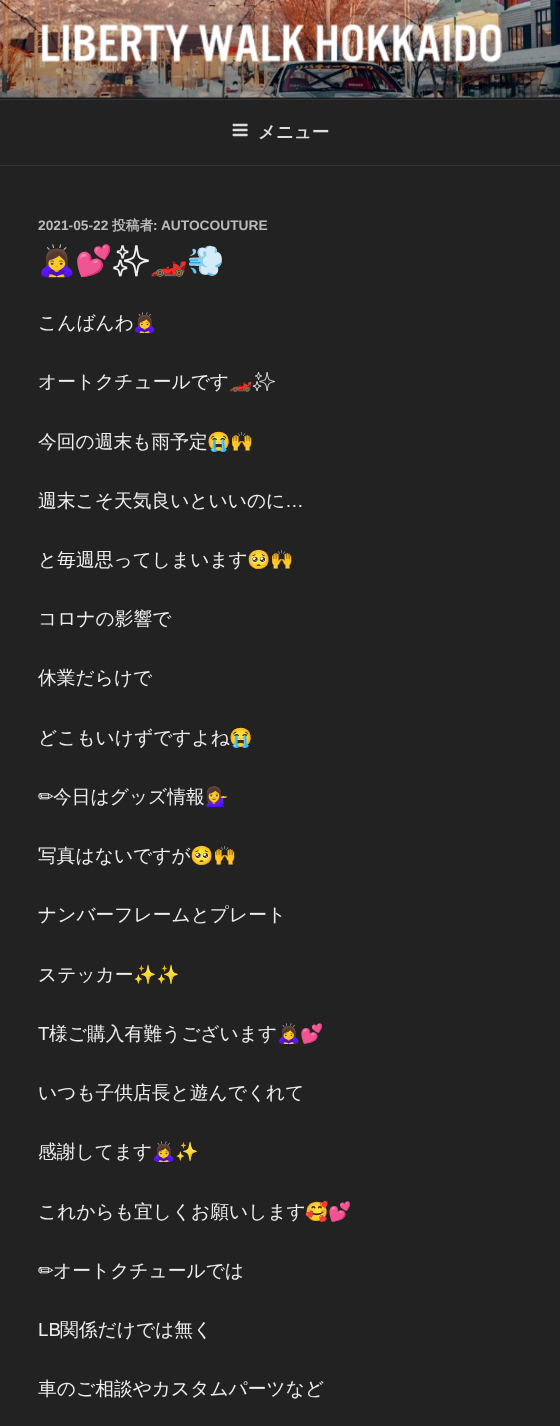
<!DOCTYPE html>
<meta charset="utf-8">
<style>body { margin: 0 } canvas { display: block }</style>
<canvas id="canvas" width="560" height="1426"></canvas>
<img id="img1" src="img_01.png" hidden>
<img id="img2" src="img_02.png" hidden>
<img id="img3" src="img_03.png" hidden>
<script>
window.onload = function () {
	const canvas = document.getElementById("canvas");
	const ctx = canvas.getContext("2d");
	ctx.miterLimit = 4;
	ctx.fontKerning = "normal";
	function txt(s, x, y) {
		ctx.fillText(s, x, y);
	}
	function fill(x, y, w, h) {
		ctx.fillRect(x, y, w, h);
	}
	function img(id, x, y, w, h) {
		ctx.drawImage(document.getElementById(id), x, y, w, h);
	}
	let gradient;

	ctx.fillStyle = "#222222";
	fill(0, 0, 560, 1426);
	ctx.fillStyle = "#262626";
	fill(0, 97, 560, 2);
	img("img1", 0, 0, 560, 98);
	gradient = ctx.createLinearGradient(280, 0, 280, 99);
	gradient.addColorStop(0, "rgba(0, 0, 0, 0)");
	gradient.addColorStop(0.75, "rgba(0, 0, 0, 0.3)");
	gradient.addColorStop(1, "rgba(0, 0, 0, 0.3)");
	ctx.fillStyle = gradient;
	fill(0, 5, 560, 94);
	img("img2", 41, 24, 461, 39);
	ctx.fillStyle = "#333333";
	fill(0, 99, 560, 1);
	fill(0, 165, 560, 1);
	img("img3", 232, 123, 16, 14);
	ctx.font = "bold 17.5px WenQuanYi Zen Hei";
	ctx.fillStyle = "#DDDDDD";
	txt("メニュー", 258, 138);
	ctx.font = "bold 13.75px Liberation Sans";
	ctx.fillStyle = "#BBBBBB";
	txt("2021-05-22", 38, 230);
	ctx.font = "bold 13.75px WenQuanYi Zen Hei";
	txt("投稿者", 112, 230);
	ctx.font = "bold 13.75px Liberation Sans";
	txt(": AUTOCOUTURE", 153, 230);
	ctx.font = "bold 30px Noto Color Emoji";
	ctx.fillStyle = "#EEEEEE";
	txt("🙇‍♀️💕", 38, 271);
	ctx.font = "bold 30px Noto Emoji";
	txt("✨", 112, 271);
	ctx.font = "bold 30px Noto Color Emoji";
	txt("🏎💨", 150, 271);
	ctx.font = "500 18.75px WenQuanYi Zen Hei";
	txt("こんばんわ", 38, 329);
	ctx.font = "18.75px Noto Color Emoji";
	txt("🙇‍♀️", 133, 329);
	ctx.font = "500 18.75px WenQuanYi Zen Hei";
	txt("オートクチュールです", 38, 388);
	ctx.font = "18.75px Noto Color Emoji";
	txt("🏎", 229, 388);
	ctx.font = "18.75px Noto Emoji";
	txt("✨", 252, 388);
	ctx.font = "500 18.75px WenQuanYi Zen Hei";
	txt("今回の週末も雨予定", 38, 448);
	ctx.font = "18.75px Noto Color Emoji";
	txt("😭🙌", 207, 448);
	ctx.font = "500 18.75px WenQuanYi Zen Hei";
	txt("週末こそ天気良いといいのに", 38, 507);
	ctx.font = "18.75px Liberation Sans";
	txt("…", 285, 507);
	ctx.font = "500 18.75px WenQuanYi Zen Hei";
	txt("と毎週思ってしまいます", 38, 566);
	ctx.font = "18.75px Noto Color Emoji";
	txt("🥺🙌", 247, 566);
	ctx.font = "500 18.75px WenQuanYi Zen Hei";
	txt("コロナの影響で", 38, 625);
	txt("休業だらけで", 38, 684);
	txt("どこもいけずですよね", 38, 744);
	ctx.font = "18.75px Noto Color Emoji";
	txt("😭", 229, 744);
	ctx.font = "18.75px DejaVu Sans";
	txt("✏︎", 38, 803);
	ctx.font = "500 18.75px WenQuanYi Zen Hei";
	txt("今日はグッズ情報", 53, 803);
	ctx.font = "18.75px Noto Color Emoji";
	txt("💁‍♀️", 205, 803);
	ctx.font = "500 18.75px WenQuanYi Zen Hei";
	txt("写真はないですが", 38, 862);
	ctx.font = "18.75px Noto Color Emoji";
	txt("🥺🙌", 190, 862);
	ctx.font = "500 18.75px WenQuanYi Zen Hei";
	txt("ナンバーフレームとプレート", 38, 921);
	txt("ステッカー", 38, 981);
	ctx.font = "18.75px Noto Color Emoji";
	txt("✨✨", 133, 981);
	ctx.font = "18.75px Liberation Sans";
	txt("T", 38, 1040);
	ctx.font = "500 18.75px WenQuanYi Zen Hei";
	txt("様ご購入有難うございます", 49, 1040);
	ctx.font = "18.75px Noto Color Emoji";
	txt("🙇‍♀️💕", 277, 1040);
	ctx.font = "500 18.75px WenQuanYi Zen Hei";
	txt("いつも子供店長と遊んでくれて", 38, 1099);
	txt("感謝してます", 38, 1158);
	ctx.font = "18.75px Noto Color Emoji";
	txt("🙇‍♀️✨", 152, 1158);
	ctx.font = "500 18.75px WenQuanYi Zen Hei";
	txt("これからも宜しくお願いします", 38, 1218);
	ctx.font = "18.75px Noto Color Emoji";
	txt("🥰💕", 305, 1218);
	ctx.font = "18.75px DejaVu Sans";
	txt("✏︎", 38, 1277);
	ctx.font = "500 18.75px WenQuanYi Zen Hei";
	txt("オートクチュールでは", 53, 1277);
	ctx.font = "18.75px Liberation Sans";
	txt("LB", 38, 1336);
	ctx.font = "500 18.75px WenQuanYi Zen Hei";
	txt("関係だけでは無く", 60, 1336);
	txt("車のご相談やカスタムパーツなど", 38, 1395);
};
</script>
